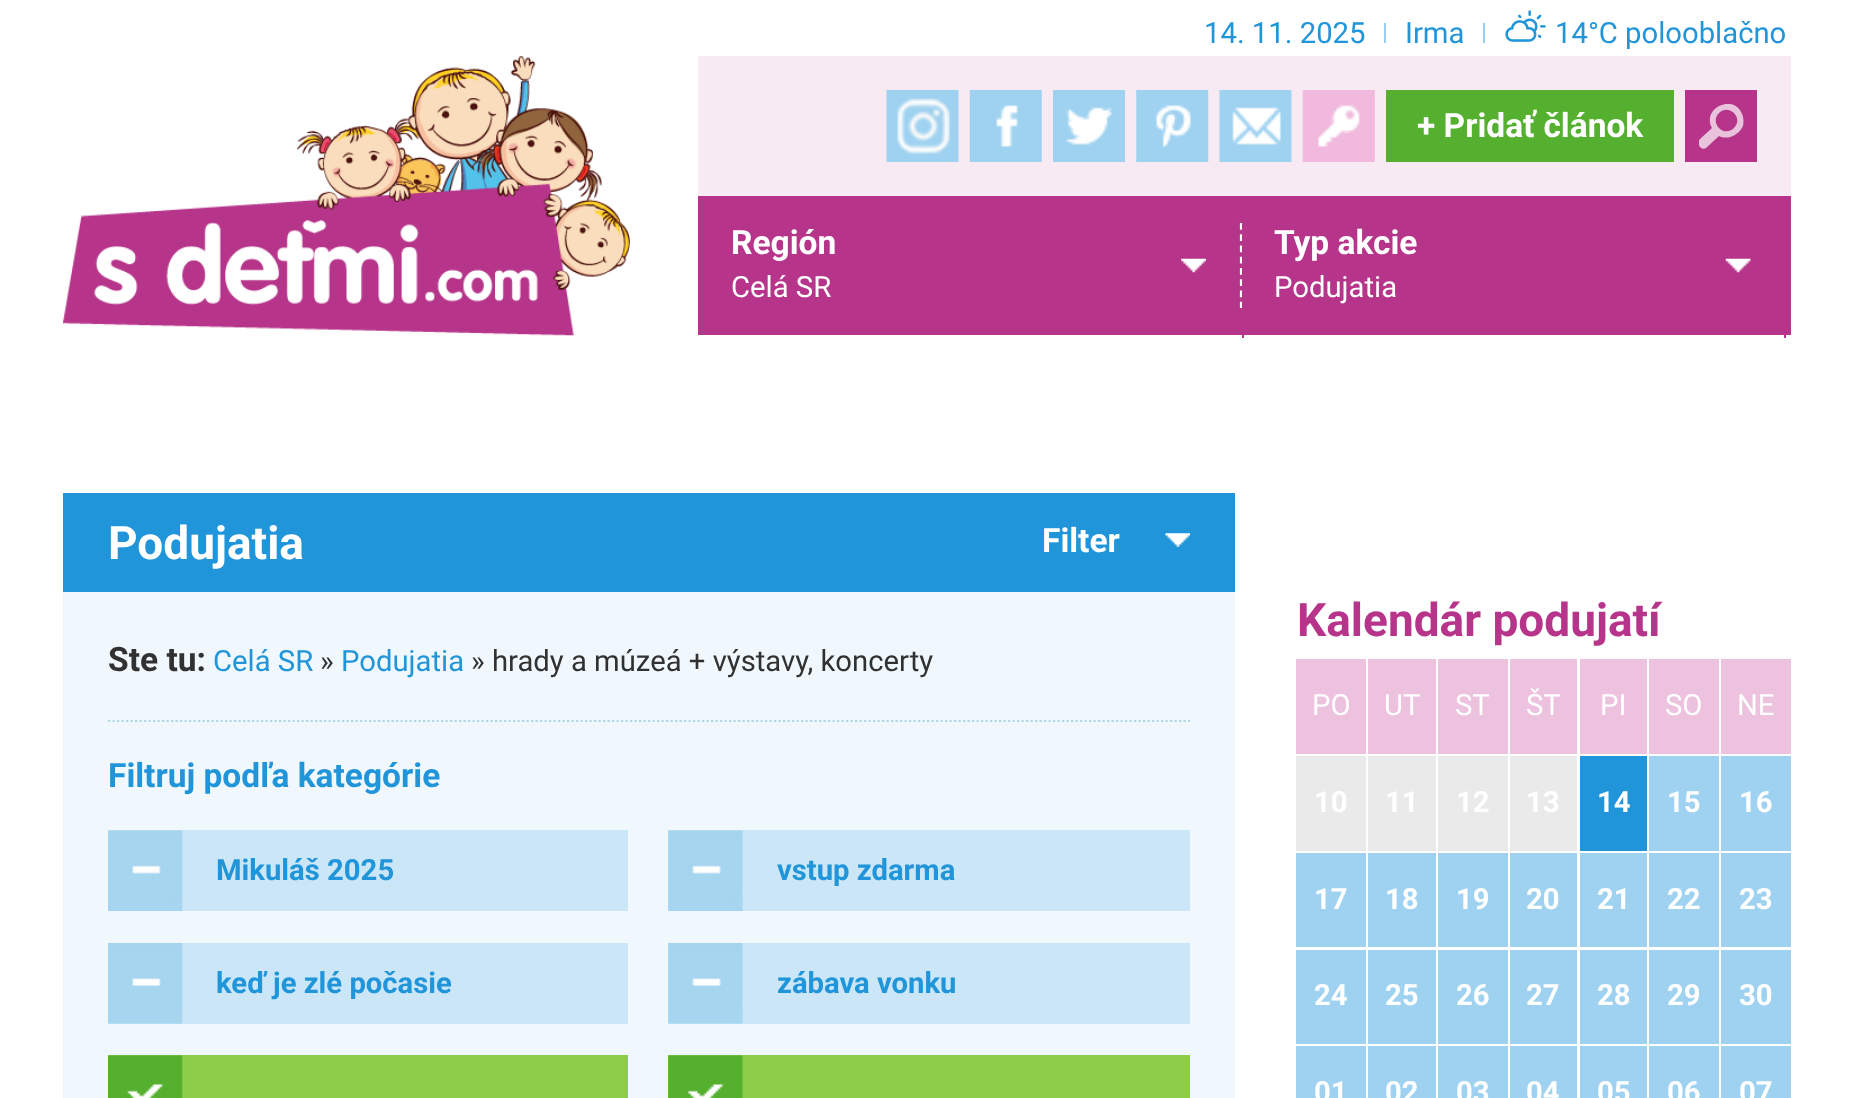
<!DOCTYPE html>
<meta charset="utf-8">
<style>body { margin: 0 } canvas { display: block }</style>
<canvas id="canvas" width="1852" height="1098"></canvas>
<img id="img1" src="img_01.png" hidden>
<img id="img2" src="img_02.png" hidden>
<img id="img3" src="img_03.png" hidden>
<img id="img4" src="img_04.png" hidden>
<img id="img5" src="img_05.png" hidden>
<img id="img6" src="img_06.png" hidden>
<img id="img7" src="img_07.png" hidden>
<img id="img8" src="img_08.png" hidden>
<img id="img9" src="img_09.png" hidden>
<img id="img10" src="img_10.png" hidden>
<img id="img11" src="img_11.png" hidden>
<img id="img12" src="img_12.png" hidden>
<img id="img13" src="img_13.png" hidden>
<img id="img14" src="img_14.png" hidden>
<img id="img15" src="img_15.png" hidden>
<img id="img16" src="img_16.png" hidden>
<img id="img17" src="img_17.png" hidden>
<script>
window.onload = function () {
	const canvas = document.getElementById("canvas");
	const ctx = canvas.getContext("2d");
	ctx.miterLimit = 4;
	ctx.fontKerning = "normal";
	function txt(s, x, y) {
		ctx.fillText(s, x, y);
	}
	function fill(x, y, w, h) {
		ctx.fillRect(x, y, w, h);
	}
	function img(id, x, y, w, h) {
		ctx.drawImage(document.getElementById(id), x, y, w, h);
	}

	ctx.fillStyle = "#FFFFFF";
	fill(0, 0, 1852, 1098);
	ctx.fillStyle = "#99D0F0";
	fill(1384, 23, 2, 20);
	fill(1483, 23, 2, 20);
	img("img1", 1505, 10, 41, 32);
	img("img2", 63, 56, 567, 280);
	ctx.fillStyle = "#F7EAF3";
	fill(698, 56, 1093, 140);
	img("img3", 886, 90, 73, 72);
	img("img4", 969, 90, 73, 72);
	img("img5", 1053, 90, 72, 72);
	img("img6", 1136, 90, 73, 72);
	img("img7", 1219, 90, 73, 72);
	img("img8", 1302, 90, 73, 72);
	ctx.fillStyle = "#55B02F";
	fill(1386, 90, 288, 72);
	ctx.fillStyle = "#B6358B";
	fill(1685, 90, 72, 72);
	ctx.save();
	ctx.beginPath();
	ctx.rect(1699, 104, 45, 45);
	ctx.clip();
	ctx.fillStyle = "#E9C3DC";
	ctx.beginPath();
	ctx.moveTo(1700, 139);
	ctx.lineTo(1712, 128);
	ctx.bezierCurveTo(1701, 108, 1734, 93, 1742, 114);
	ctx.bezierCurveTo(1744, 119, 1744, 124, 1742, 128);
	ctx.bezierCurveTo(1737, 136, 1727, 140, 1719, 136);
	ctx.lineTo(1706, 148);
	ctx.bezierCurveTo(1701, 151, 1696, 144, 1700, 139);
	ctx.closePath();
	ctx.moveTo(1734, 128);
	ctx.bezierCurveTo(1744, 118, 1729, 103, 1719, 113);
	ctx.bezierCurveTo(1709, 123, 1724, 138, 1734, 128);
	ctx.closePath();
	ctx.fill();
	ctx.restore();
	fill(698, 196, 1093, 139);
	ctx.beginPath();
	ctx.moveTo(1241, 223);
	ctx.lineTo(1241, 308);
	ctx.strokeStyle = "#FFFFFF";
	ctx.lineWidth = 2.2;
	ctx.setLineDash([6.75, 4.5]);
	ctx.stroke();
	fill(1242, 223, 2, 115);
	img("img9", 1181, 258, 25, 15);
	fill(1784, 335, 2, 3);
	img("img10", 1725, 258, 26, 15);
	ctx.fillStyle = "#F1F8FD";
	fill(63, 592, 1172, 506);
	ctx.fillStyle = "#2195D9";
	fill(63, 493, 1172, 99);
	img("img11", 1165, 533, 26, 14);
	ctx.beginPath();
	ctx.moveTo(108, 721);
	ctx.lineTo(1190, 721);
	ctx.strokeStyle = "#ADD8E6";
	ctx.setLineDash([2.25, 2.25]);
	ctx.stroke();
	ctx.fillStyle = "#CBE6F6";
	fill(108, 830, 520, 81);
	img("img12", 108, 830, 75, 82);
	fill(668, 830, 522, 81);
	img("img13", 668, 830, 75, 82);
	fill(108, 943, 520, 81);
	img("img14", 108, 942, 75, 82);
	fill(668, 943, 522, 81);
	img("img15", 668, 942, 75, 82);
	ctx.fillStyle = "#8ECD48";
	fill(108, 1055, 520, 43);
	img("img16", 108, 1055, 75, 43);
	fill(668, 1055, 522, 43);
	img("img17", 668, 1055, 75, 43);
	ctx.fillStyle = "#EDC2DF";
	fill(1296, 659, 70, 95);
	fill(1368, 659, 68, 95);
	fill(1438, 659, 70, 95);
	fill(1510, 659, 67, 95);
	fill(1580, 659, 67, 95);
	fill(1649, 659, 70, 95);
	fill(1721, 659, 70, 95);
	ctx.fillStyle = "#EAEAEA";
	fill(1296, 756, 70, 95);
	fill(1368, 756, 68, 95);
	fill(1438, 756, 70, 95);
	fill(1510, 756, 67, 95);
	ctx.fillStyle = "#2195D9";
	fill(1580, 756, 67, 95);
	ctx.fillStyle = "#9FD2F0";
	fill(1649, 756, 70, 95);
	fill(1721, 756, 70, 95);
	fill(1296, 853, 70, 94);
	fill(1368, 853, 68, 94);
	fill(1438, 853, 70, 94);
	fill(1510, 853, 67, 94);
	fill(1580, 853, 67, 94);
	fill(1649, 853, 70, 94);
	fill(1721, 853, 70, 94);
	fill(1296, 950, 70, 94);
	fill(1368, 950, 68, 94);
	fill(1438, 950, 70, 94);
	fill(1510, 950, 67, 94);
	fill(1580, 950, 67, 94);
	fill(1649, 950, 70, 94);
	fill(1721, 950, 70, 94);
	fill(1296, 1046, 70, 52);
	fill(1368, 1046, 68, 52);
	fill(1438, 1046, 70, 52);
	fill(1510, 1046, 67, 52);
	fill(1580, 1046, 67, 52);
	fill(1649, 1046, 70, 52);
	fill(1721, 1046, 70, 52);
	ctx.font = "29.25px Roboto";
	ctx.fillStyle = "#2195D9";
	txt("14. 11. 2025", 1204, 43);
	txt("Irma", 1405, 43);
	txt("14°C polooblačno", 1555, 43);
	ctx.font = "bold 33.5px Roboto";
	ctx.fillStyle = "#FFFFFF";
	txt("+ Pridať článok", 1417, 137);
	txt("Región", 731, 254);
	ctx.font = "29.25px Roboto";
	txt("Celá SR", 731, 297);
	ctx.font = "bold 33.5px Roboto";
	txt("Typ akcie", 1274, 254);
	ctx.font = "29.25px Roboto";
	txt("Podujatia", 1274, 297);
	ctx.font = "bold 46px Roboto";
	txt("Podujatia", 108, 559);
	ctx.font = "bold 33.5px Roboto";
	txt("Filter", 1042, 552);
	ctx.fillStyle = "#313131";
	txt("Ste tu:", 108, 671);
	ctx.font = "29.25px Roboto";
	ctx.fillStyle = "#2195D9";
	txt("Celá SR", 213, 671);
	ctx.fillStyle = "#313131";
	txt("»", 320, 671);
	ctx.fillStyle = "#2195D9";
	txt("Podujatia", 341, 671);
	ctx.fillStyle = "#313131";
	txt("» hrady a múzeá + výstavy, koncerty", 471, 671);
	ctx.font = "bold 33.5px Roboto";
	ctx.fillStyle = "#2195D9";
	txt("Filtruj podľa kategórie", 108, 787);
	ctx.font = "bold 29.25px Roboto";
	txt("Mikuláš 2025", 216, 880);
	txt("vstup zdarma", 777, 880);
	txt("keď je zlé počasie", 216, 993);
	txt("zábava vonku", 777, 993);
	ctx.font = "bold 46px Roboto";
	ctx.fillStyle = "#B6358B";
	txt("Kalendár podujatí", 1297, 636);
	ctx.font = "29.25px Roboto";
	ctx.fillStyle = "#FFFFFF";
	txt("PO", 1312, 715);
	txt("UT", 1384, 715);
	txt("ST", 1455, 715);
	txt("ŠT", 1526, 715);
	txt("PI", 1600, 715);
	txt("SO", 1665, 715);
	txt("NE", 1737, 715);
	ctx.font = "bold 29.25px Roboto";
	txt("10", 1314, 812);
	txt("11", 1385, 812);
	txt("12", 1456, 812);
	txt("13", 1526, 812);
	txt("14", 1597, 812);
	txt("15", 1667, 812);
	txt("16", 1739, 812);
	txt("17", 1314, 909);
	txt("18", 1385, 909);
	txt("19", 1456, 909);
	txt("20", 1526, 909);
	txt("21", 1597, 909);
	txt("22", 1667, 909);
	txt("23", 1739, 909);
	txt("24", 1314, 1005);
	txt("25", 1385, 1005);
	txt("26", 1456, 1005);
	txt("27", 1526, 1005);
	txt("28", 1597, 1005);
	txt("29", 1667, 1005);
	txt("30", 1739, 1005);
	txt("01", 1314, 1102);
	txt("02", 1385, 1102);
	txt("03", 1456, 1102);
	txt("04", 1526, 1102);
	txt("05", 1597, 1102);
	txt("06", 1667, 1102);
	txt("07", 1739, 1102);
};
</script>
